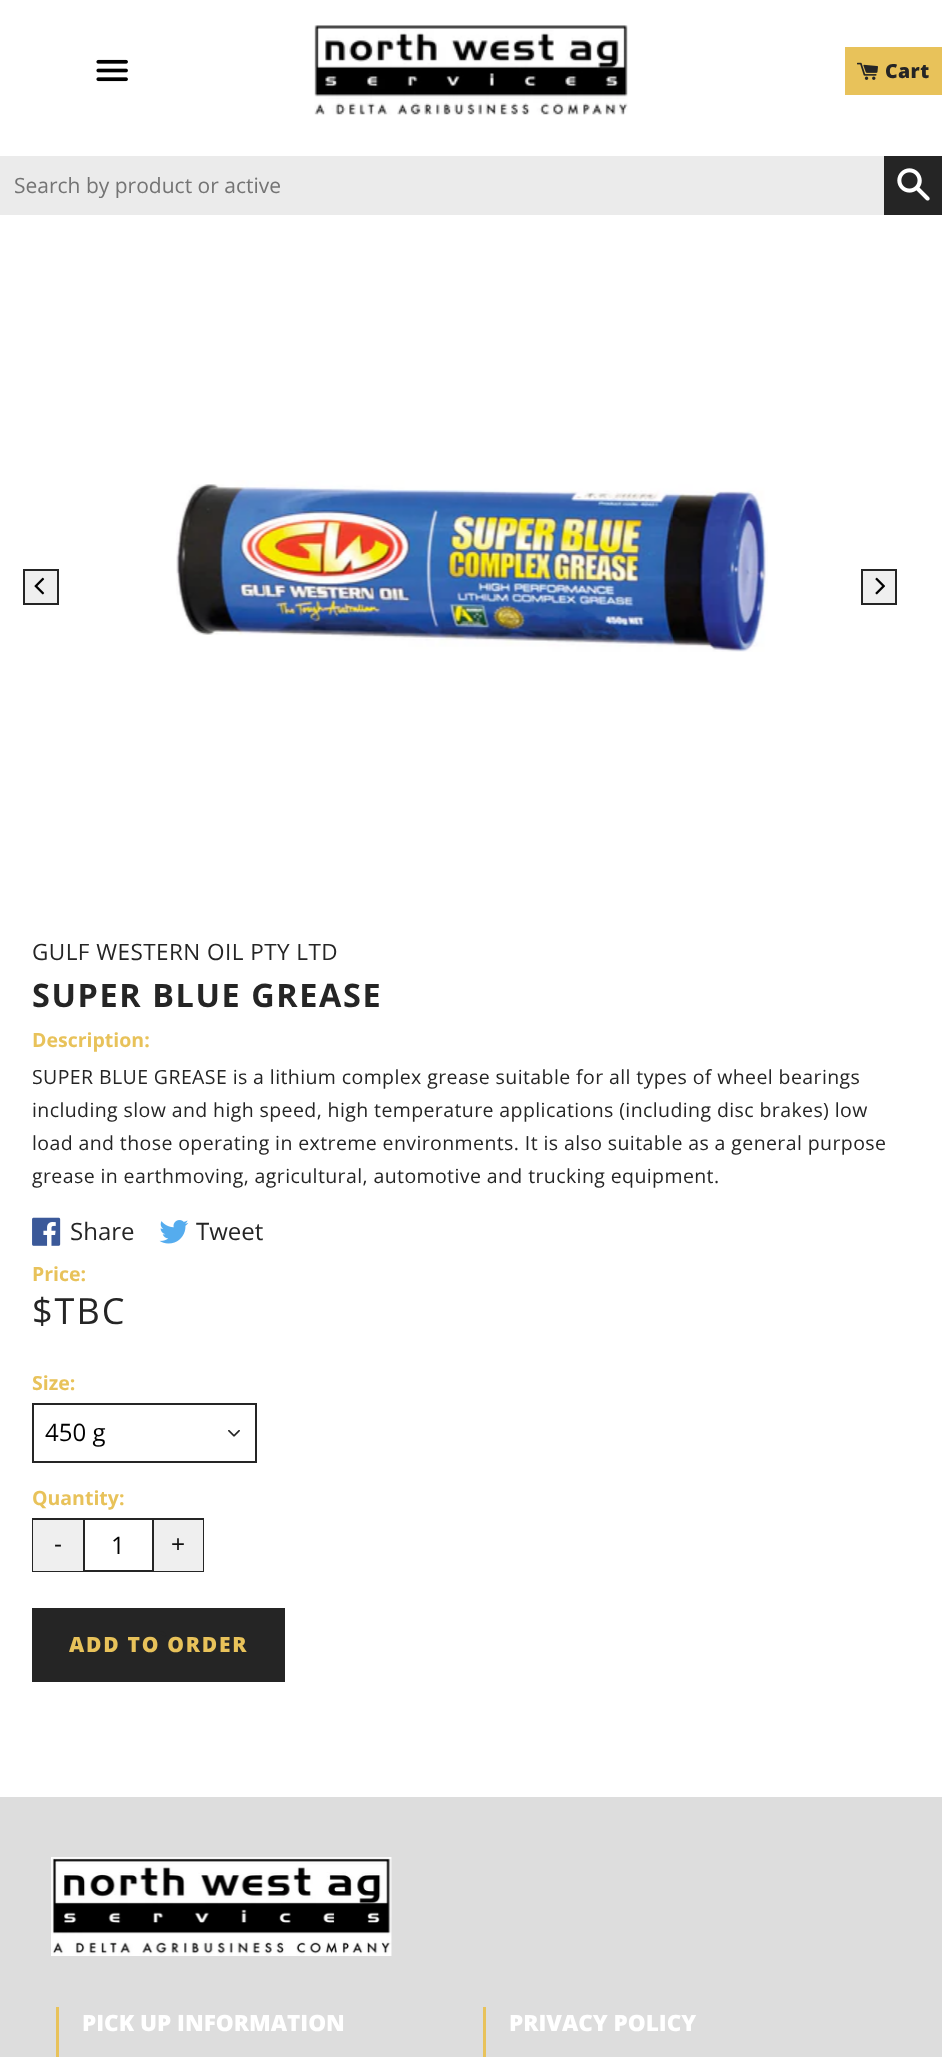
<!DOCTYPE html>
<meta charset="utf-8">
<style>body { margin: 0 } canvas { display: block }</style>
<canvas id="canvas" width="942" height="2057"></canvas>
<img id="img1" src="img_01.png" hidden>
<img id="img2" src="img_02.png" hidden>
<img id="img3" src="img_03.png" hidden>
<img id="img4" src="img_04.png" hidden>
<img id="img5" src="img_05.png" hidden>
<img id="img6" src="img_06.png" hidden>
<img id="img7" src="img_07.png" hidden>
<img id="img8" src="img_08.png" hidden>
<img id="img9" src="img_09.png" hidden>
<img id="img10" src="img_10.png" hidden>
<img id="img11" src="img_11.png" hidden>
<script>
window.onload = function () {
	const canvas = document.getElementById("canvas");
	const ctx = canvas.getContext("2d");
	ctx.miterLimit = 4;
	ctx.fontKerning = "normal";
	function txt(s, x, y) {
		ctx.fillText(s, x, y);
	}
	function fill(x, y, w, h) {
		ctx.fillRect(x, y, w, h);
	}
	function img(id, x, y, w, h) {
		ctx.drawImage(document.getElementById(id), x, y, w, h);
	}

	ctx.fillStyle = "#FFFFFF";
	fill(0, 0, 942, 2057);
	img("img1", 96, 59, 32, 23);
	img("img2", 314, 25, 314, 90);
	ctx.fillStyle = "#E8C25A";
	fill(845, 47, 97, 48);
	img("img3", 857, 62, 21, 18);
	ctx.fillStyle = "#EBEBEB";
	fill(0, 156, 884, 59);
	ctx.fillStyle = "#252525";
	fill(884, 156, 58, 59);
	img("img4", 897, 168, 33, 33);
	ctx.fillStyle = "#EFEFEF";
	ctx.beginPath();
	ctx.rect(24, 570, 34, 34);
	ctx.fill();
	ctx.strokeStyle = "#252525";
	ctx.lineWidth = 2;
	ctx.stroke();
	img("img5", 34, 577, 11, 18);
	img("img6", 176, 480, 592, 172);
	ctx.beginPath();
	ctx.rect(862, 570, 34, 34);
	ctx.fill();
	ctx.stroke();
	img("img7", 875, 577, 10, 18);
	img("img8", 32, 1217, 29, 29);
	img("img9", 159, 1220, 30, 24);
	img("img10", 228, 1430, 12, 7);
	ctx.strokeRect(33, 1404, 223, 58);
	ctx.strokeRect(33, 1519, 170, 52);
	fill(33, 1520, 50, 51);
	ctx.fillStyle = "#252525";
	fill(83, 1520, 2, 51);
	ctx.fillStyle = "#EFEFEF";
	fill(154, 1520, 49, 51);
	ctx.fillStyle = "#252525";
	fill(152, 1520, 2, 51);
	fill(32, 1608, 253, 74);
	ctx.fillStyle = "#DDDDDD";
	fill(0, 1797, 942, 260);
	img("img11", 51, 1857, 341, 99);
	ctx.fillStyle = "#E8C25A";
	fill(56, 2007, 3, 50);
	fill(483, 2007, 3, 50);
	ctx.letterSpacing = "0.4px";
	ctx.font = "800 19.5px Open Sans";
	ctx.fillStyle = "#252525";
	txt("Cart", 885, 78);
	ctx.letterSpacing = "0px";
	ctx.font = "21px Open Sans";
	ctx.fillStyle = "#747474";
	txt("Search by product or active", 14, 193);
	ctx.letterSpacing = "0.45px";
	ctx.font = "22.5px Open Sans";
	ctx.fillStyle = "#252525";
	txt("GULF WESTERN OIL PTY LTD", 32, 960);
	ctx.letterSpacing = "1.6px";
	ctx.font = "bold 32.4px Open Sans";
	txt("SUPER BLUE GREASE", 32, 1007);
	ctx.letterSpacing = "0px";
	ctx.font = "bold 19.5px Open Sans";
	ctx.fillStyle = "#E8C25A";
	txt("Description:", 32, 1047);
	ctx.letterSpacing = "0.4px";
	ctx.font = "19.5px Open Sans";
	ctx.fillStyle = "#252525";
	txt("SUPER BLUE GREASE is a lithium complex grease suitable for all types of wheel bearings", 32, 1084);
	txt("including slow and high speed, high temperature applications (including disc brakes) low", 32, 1117);
	txt("load and those operating in extreme environments. It is also suitable as a general purpose", 32, 1150);
	txt("grease in earthmoving, agricultural, automotive and trucking equipment.", 32, 1183);
	ctx.letterSpacing = "0px";
	ctx.font = "24px Open Sans";
	txt("Share", 70, 1240);
	txt("Tweet", 196, 1240);
	ctx.font = "bold 19.5px Open Sans";
	ctx.fillStyle = "#E8C25A";
	txt("Price:", 32, 1281);
	ctx.letterSpacing = "2px";
	ctx.font = "36px Open Sans";
	ctx.fillStyle = "#252525";
	txt("$TBC", 32, 1324);
	ctx.letterSpacing = "0px";
	ctx.font = "bold 19.5px Open Sans";
	ctx.fillStyle = "#E8C25A";
	txt("Size:", 32, 1390);
	ctx.font = "24px Open Sans";
	ctx.fillStyle = "#000000";
	txt("450 g", 45, 1441);
	ctx.font = "bold 19.5px Open Sans";
	ctx.fillStyle = "#E8C25A";
	txt("Quantity:", 32, 1505);
	ctx.font = "24px Liberation Sans";
	ctx.fillStyle = "#111111";
	txt("-", 54, 1552);
	ctx.font = "24px Open Sans";
	ctx.fillStyle = "#000000";
	txt("1", 111, 1554);
	ctx.font = "24px Liberation Sans";
	ctx.fillStyle = "#111111";
	txt("+", 171, 1552);
	ctx.letterSpacing = "1.75px";
	ctx.font = "800 21px Open Sans";
	ctx.fillStyle = "#E8C25A";
	txt("ADD TO ORDER", 69, 1652);
	ctx.beginPath();
	ctx.moveTo(149, 1635.5);
	ctx.bezierCurveTo(153.5, 1631, 161.5, 1631, 166, 1635.5);
	ctx.lineWidth = 3;
	ctx.stroke();
	ctx.letterSpacing = "0px";
	ctx.font = "800 22.5px Open Sans";
	ctx.fillStyle = "#FFFFFF";
	txt("PICK UP INFORMATION", 82, 2031);
	txt("PRIVACY POLICY", 509, 2031);
};
</script>
